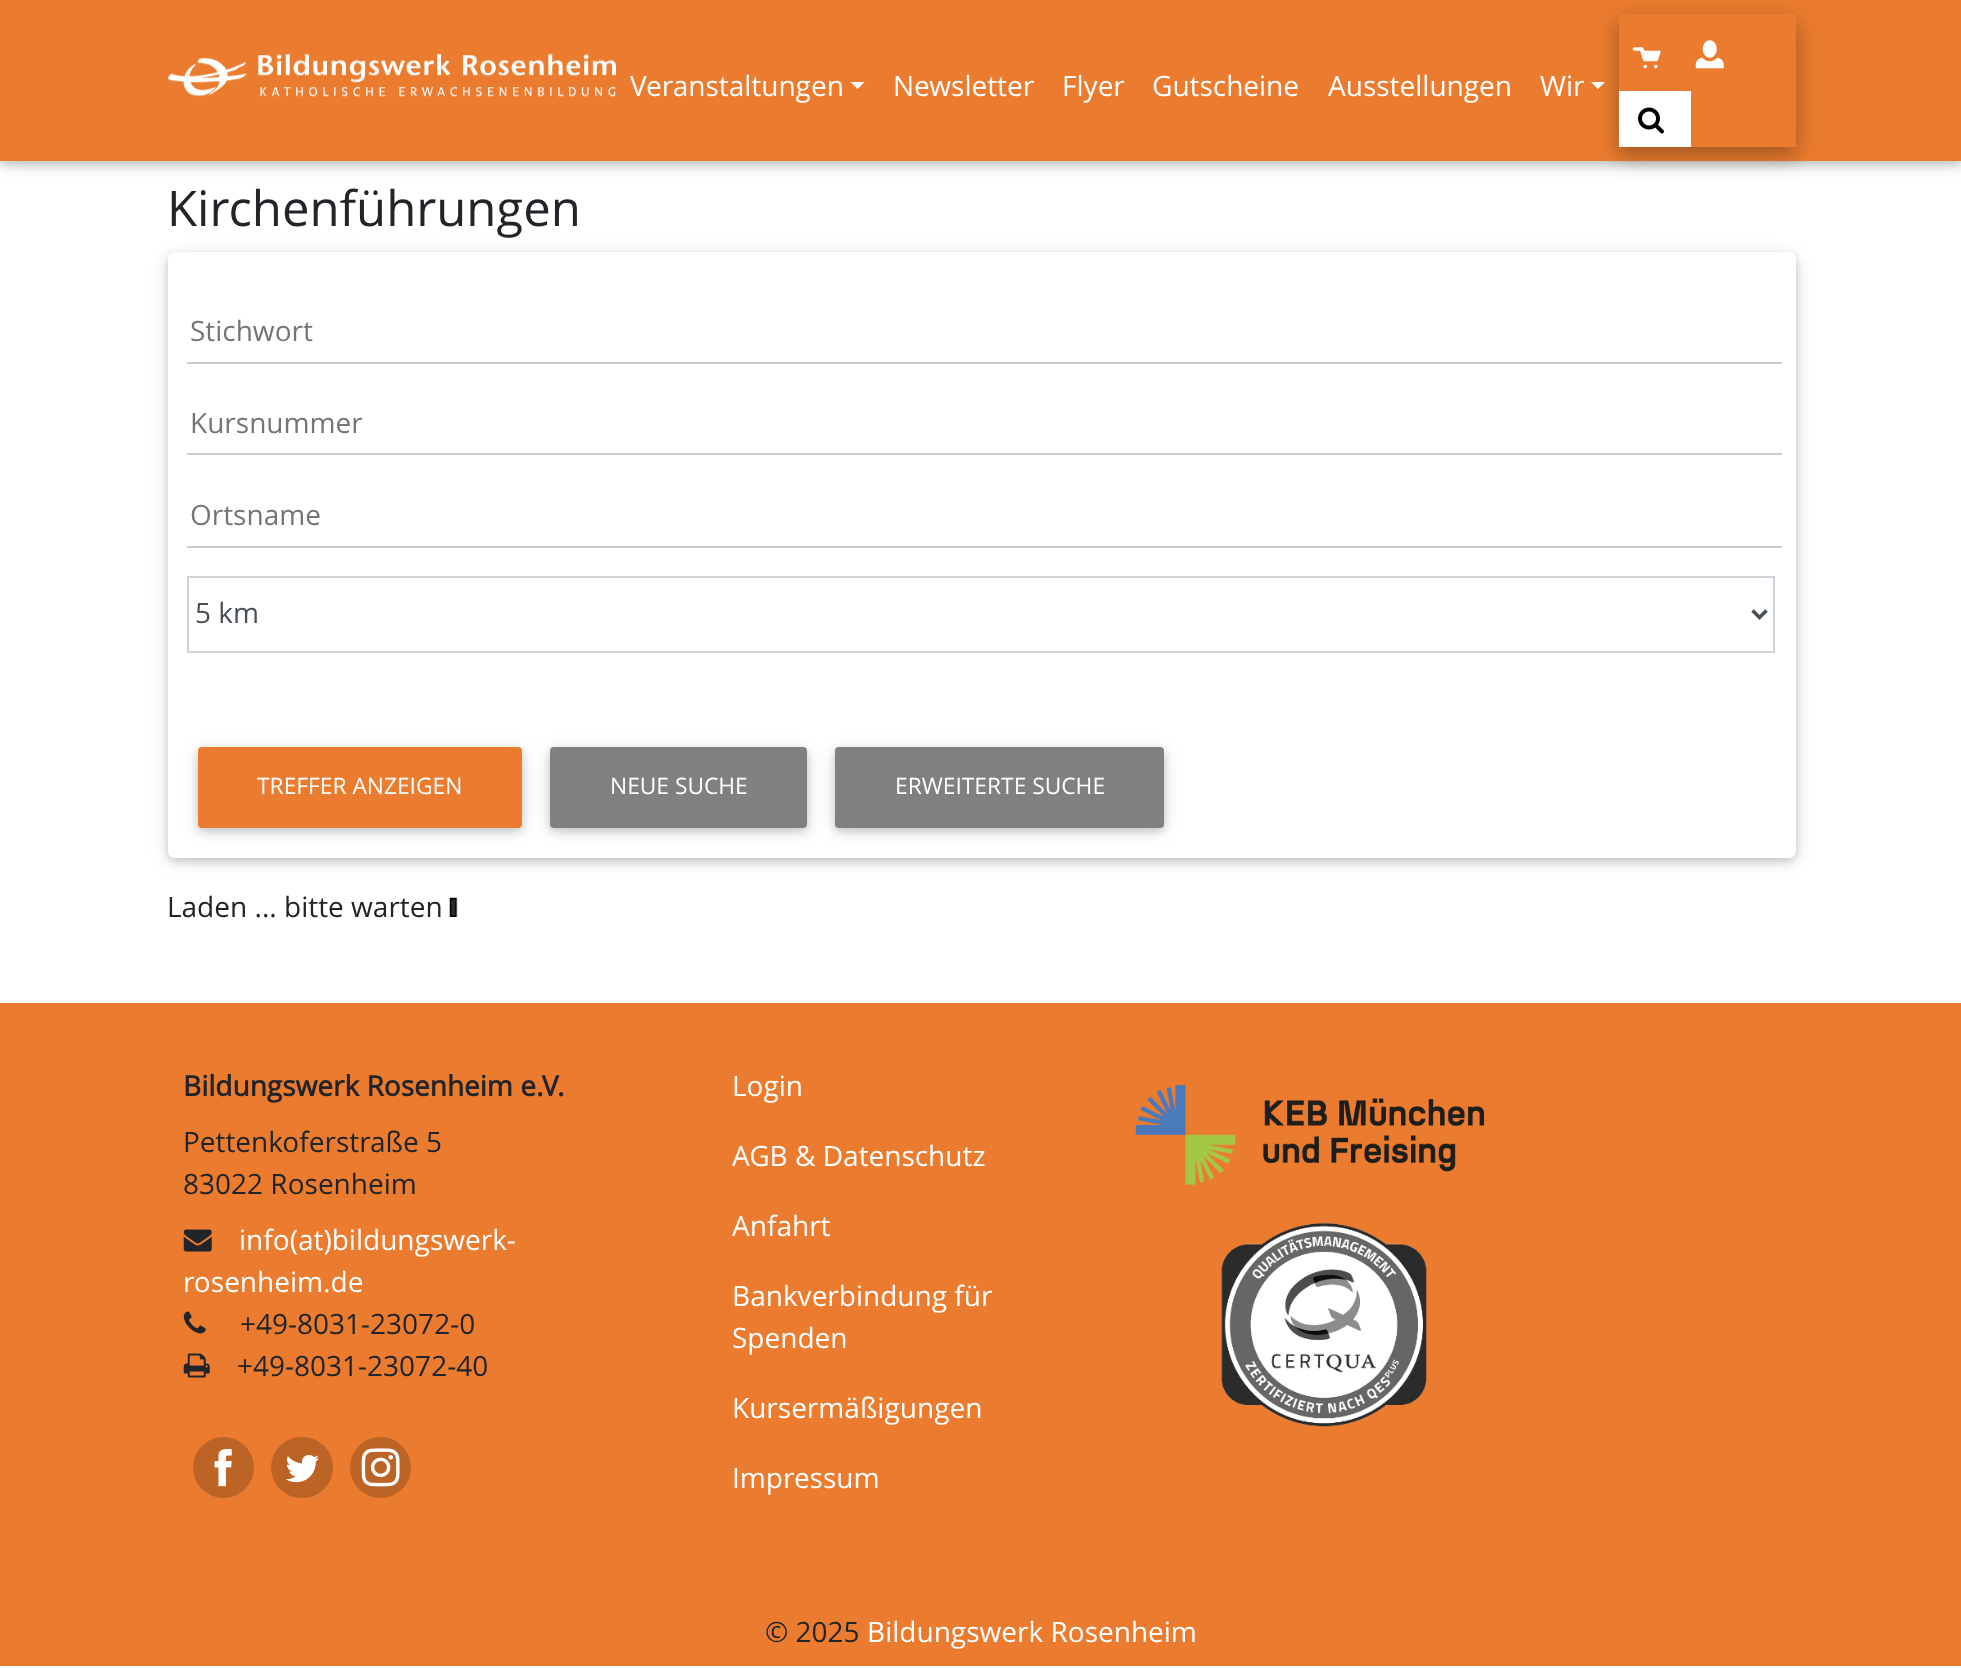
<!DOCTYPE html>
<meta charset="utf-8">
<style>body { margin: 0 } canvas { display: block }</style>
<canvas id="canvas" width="1961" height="1668"></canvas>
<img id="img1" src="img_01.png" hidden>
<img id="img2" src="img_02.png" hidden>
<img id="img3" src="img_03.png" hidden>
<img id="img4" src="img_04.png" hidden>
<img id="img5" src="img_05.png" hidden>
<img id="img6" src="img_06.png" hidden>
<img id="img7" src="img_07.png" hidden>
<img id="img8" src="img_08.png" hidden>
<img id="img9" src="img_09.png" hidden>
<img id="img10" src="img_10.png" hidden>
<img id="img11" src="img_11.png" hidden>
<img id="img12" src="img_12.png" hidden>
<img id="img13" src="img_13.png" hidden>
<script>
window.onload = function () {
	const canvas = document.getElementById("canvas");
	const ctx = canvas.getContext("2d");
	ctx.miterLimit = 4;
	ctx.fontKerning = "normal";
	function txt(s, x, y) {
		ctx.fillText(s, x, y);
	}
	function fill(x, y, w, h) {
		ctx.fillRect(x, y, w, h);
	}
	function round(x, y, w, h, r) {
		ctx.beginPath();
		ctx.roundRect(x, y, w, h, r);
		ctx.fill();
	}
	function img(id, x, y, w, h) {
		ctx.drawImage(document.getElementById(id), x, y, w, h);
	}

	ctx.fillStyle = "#FFFFFF";
	fill(0, 0, 1961, 1668);
	ctx.fillStyle = "rgba(0, 0, 0, 0.12)";
	ctx.filter = "blur(9px)";
	ctx.beginPath();
	ctx.rect(0, 4, 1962, 161);
	ctx.fill();
	ctx.filter = "none";
	ctx.fillStyle = "rgba(0, 0, 0, 0.16)";
	ctx.filter = "blur(4.5px)";
	ctx.beginPath();
	ctx.rect(0, 4, 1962, 161);
	ctx.fill();
	ctx.filter = "none";
	ctx.fillStyle = "#EB7C2F";
	fill(0, 0, 1961, 161);
	img("img1", 168, 54, 448, 43);
	ctx.fillStyle = "#FFFFFF";
	ctx.beginPath();
	ctx.moveTo(850.5, 82);
	ctx.lineTo(864.5, 82);
	ctx.lineTo(857.5, 89);
	ctx.closePath();
	ctx.fill();
	ctx.save();
	ctx.beginPath();
	ctx.moveTo(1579, 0);
	ctx.lineTo(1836, 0);
	ctx.lineTo(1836, 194);
	ctx.lineTo(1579, 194);
	ctx.closePath();
	ctx.moveTo(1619, 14);
	ctx.lineTo(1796, 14);
	ctx.lineTo(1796, 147);
	ctx.lineTo(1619, 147);
	ctx.closePath();
	ctx.clip("evenodd");
	ctx.fillStyle = "rgba(0, 0, 0, 0.15)";
	ctx.filter = "blur(13px)";
	ctx.beginPath();
	ctx.rect(1619, 21, 177, 133);
	ctx.fill();
	ctx.filter = "none";
	ctx.restore();
	ctx.save();
	ctx.beginPath();
	ctx.moveTo(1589, 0);
	ctx.lineTo(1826, 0);
	ctx.lineTo(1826, 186);
	ctx.lineTo(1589, 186);
	ctx.closePath();
	ctx.moveTo(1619, 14);
	ctx.lineTo(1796, 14);
	ctx.lineTo(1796, 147);
	ctx.lineTo(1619, 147);
	ctx.closePath();
	ctx.clip("evenodd");
	ctx.fillStyle = "rgba(0, 0, 0, 0.18)";
	ctx.filter = "blur(9.5px)";
	ctx.beginPath();
	ctx.rect(1619, 23, 177, 133);
	ctx.fill();
	ctx.filter = "none";
	ctx.restore();
	ctx.beginPath();
	ctx.moveTo(1591, 82);
	ctx.lineTo(1605, 82);
	ctx.lineTo(1598, 89);
	ctx.closePath();
	ctx.fill();
	img("img2", 1632, 47, 29, 22);
	img("img3", 1695, 40, 29, 29);
	fill(1619, 91, 72, 56);
	img("img4", 1638, 107, 26, 27);
	ctx.fillStyle = "rgba(0, 0, 0, 0.12)";
	ctx.filter = "blur(9px)";
	ctx.beginPath();
	ctx.roundRect(168, 256, 1628, 605, 7);
	ctx.fill();
	ctx.filter = "none";
	ctx.fillStyle = "rgba(0, 0, 0, 0.16)";
	ctx.filter = "blur(4.5px)";
	ctx.beginPath();
	ctx.roundRect(168, 256, 1628, 605, 7);
	ctx.fill();
	ctx.filter = "none";
	ctx.fillStyle = "#FFFFFF";
	round(168, 252, 1628, 606, 7);
	ctx.fillStyle = "#CCCCCC";
	fill(187, 362, 1595, 2);
	fill(187, 453, 1595, 2);
	fill(187, 546, 1595, 2);
	ctx.strokeStyle = "#CED4DA";
	ctx.lineWidth = 2;
	ctx.strokeRect(188, 577, 1586, 75);
	ctx.beginPath();
	ctx.moveTo(1752.5, 610.5);
	ctx.lineTo(1759.5, 617.5);
	ctx.lineTo(1766.5, 610.5);
	ctx.strokeStyle = "#495057";
	ctx.lineWidth = 3.5;
	ctx.stroke();
	ctx.fillStyle = "rgba(0, 0, 0, 0.12)";
	ctx.filter = "blur(9px)";
	ctx.beginPath();
	ctx.roundRect(198, 751, 324, 80, 4);
	ctx.fill();
	ctx.filter = "none";
	ctx.fillStyle = "rgba(0, 0, 0, 0.16)";
	ctx.filter = "blur(4.5px)";
	ctx.beginPath();
	ctx.roundRect(198, 751, 324, 80, 4);
	ctx.fill();
	ctx.filter = "none";
	ctx.fillStyle = "#EB7C2F";
	round(198, 747, 324, 81, 4);
	ctx.fillStyle = "rgba(0, 0, 0, 0.12)";
	ctx.filter = "blur(9px)";
	ctx.beginPath();
	ctx.roundRect(550, 751, 257, 80, 4);
	ctx.fill();
	ctx.filter = "none";
	ctx.fillStyle = "rgba(0, 0, 0, 0.16)";
	ctx.filter = "blur(4.5px)";
	ctx.beginPath();
	ctx.roundRect(550, 751, 257, 80, 4);
	ctx.fill();
	ctx.filter = "none";
	ctx.fillStyle = "#808080";
	round(550, 747, 257, 81, 4);
	ctx.fillStyle = "rgba(0, 0, 0, 0.12)";
	ctx.filter = "blur(9px)";
	ctx.beginPath();
	ctx.roundRect(835, 751, 329, 80, 4);
	ctx.fill();
	ctx.filter = "none";
	ctx.fillStyle = "rgba(0, 0, 0, 0.16)";
	ctx.filter = "blur(4.5px)";
	ctx.beginPath();
	ctx.roundRect(835, 751, 329, 80, 4);
	ctx.fill();
	ctx.filter = "none";
	ctx.fillStyle = "#808080";
	round(835, 747, 329, 81, 4);
	img("img5", 449, 897, 9, 20);
	ctx.fillStyle = "#EB7C2F";
	fill(0, 1003, 1961, 663);
	img("img6", 183, 1229, 29, 23);
	img("img7", 183, 1311, 23, 23);
	img("img8", 183, 1353, 27, 25);
	ctx.fillStyle = "#BC6326";
	ctx.beginPath();
	ctx.arc(223.5, 1467.5, 30.5, 0, Math.PI * 2);
	ctx.fill();
	img("img9", 214, 1449, 18, 38);
	round(271, 1437, 62, 61, 30.5);
	img("img10", 285, 1454, 34, 29);
	ctx.beginPath();
	ctx.arc(380.5, 1467.5, 30.5, 0, Math.PI * 2);
	ctx.fill();
	img("img11", 361, 1448, 39, 39);
	img("img12", 1135, 1085, 349, 100);
	img("img13", 1221, 1223, 206, 204);
	ctx.font = "28px Open Sans";
	ctx.fillStyle = "#FFFFFF";
	txt("Veranstaltungen", 630, 96);
	txt("Newsletter", 893, 96);
	txt("Flyer", 1062, 96);
	txt("Gutscheine", 1152, 96);
	txt("Ausstellungen", 1328, 96);
	txt("Wir", 1540, 96);
	ctx.font = "49px Open Sans";
	ctx.fillStyle = "#212529";
	txt("Kirchenführungen", 167, 226);
	ctx.font = "28px Open Sans";
	ctx.fillStyle = "#757575";
	txt("Stichwort", 190, 341);
	txt("Kursnummer", 190, 433);
	txt("Ortsname", 190, 525);
	ctx.fillStyle = "#495057";
	txt("5 km", 195, 623);
	ctx.font = "22.75px Open Sans";
	ctx.fillStyle = "#FFFFFF";
	txt("TREFFER ANZEIGEN", 257, 794);
	txt("NEUE SUCHE", 610, 794);
	txt("ERWEITERTE SUCHE", 895, 794);
	ctx.font = "28px Open Sans";
	ctx.fillStyle = "#212529";
	txt("Laden ... bitte warten", 167, 917);
	ctx.font = "bold 28px Open Sans";
	txt("Bildungswerk Rosenheim e.V.", 183, 1096);
	ctx.font = "28px Open Sans";
	txt("Pettenkoferstraße 5", 183, 1152);
	txt("83022 Rosenheim", 183, 1194);
	ctx.fillStyle = "#FFFFFF";
	txt("info(at)bildungswerk-", 239, 1250);
	txt("rosenheim.de", 183, 1292);
	ctx.fillStyle = "#212529";
	txt("+49-8031-23072-0", 240, 1334);
	txt("+49-8031-23072-40", 237, 1376);
	ctx.fillStyle = "#FFFFFF";
	txt("Login", 732, 1096);
	txt("AGB & Datenschutz", 732, 1166);
	txt("Anfahrt", 732, 1236);
	txt("Bankverbindung für", 732, 1306);
	txt("Spenden", 732, 1348);
	txt("Kursermäßigungen", 732, 1418);
	txt("Impressum", 732, 1488);
	ctx.fillStyle = "#212529";
	txt("© 2025", 765, 1642);
	ctx.fillStyle = "#FFFFFF";
	txt("Bildungswerk Rosenheim", 867, 1642);
};
</script>
